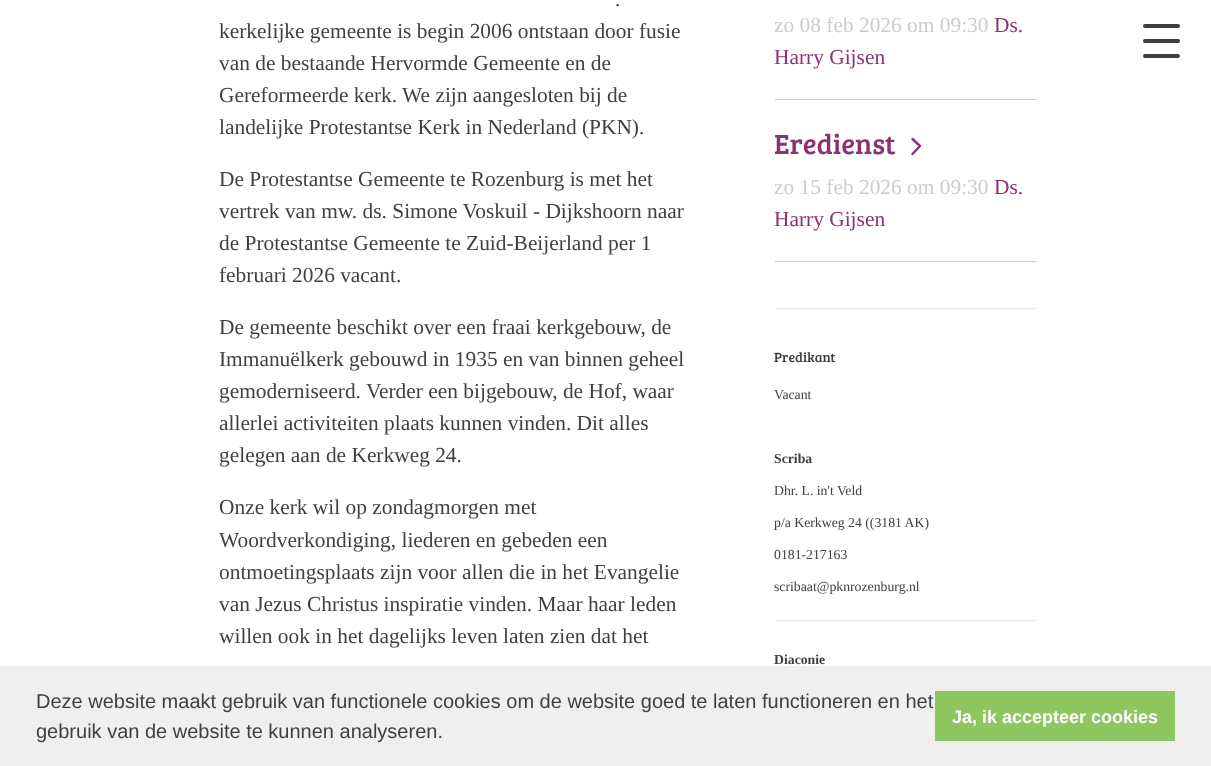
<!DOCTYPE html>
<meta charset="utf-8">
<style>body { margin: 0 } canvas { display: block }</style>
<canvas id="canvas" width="1211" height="766"></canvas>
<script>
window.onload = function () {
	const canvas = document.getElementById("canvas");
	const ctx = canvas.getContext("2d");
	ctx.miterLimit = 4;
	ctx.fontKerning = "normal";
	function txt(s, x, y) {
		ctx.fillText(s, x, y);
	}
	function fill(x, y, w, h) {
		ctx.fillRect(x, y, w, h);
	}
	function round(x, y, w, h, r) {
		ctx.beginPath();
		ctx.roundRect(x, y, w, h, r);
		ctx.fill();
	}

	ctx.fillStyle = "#FFFFFF";
	fill(0, 0, 1211, 766);
	ctx.fillStyle = "#CCCCCC";
	fill(775, 99, 261, 1);
	fill(775, 261, 261, 1);
	ctx.beginPath();
	ctx.moveTo(912.5, 154);
	ctx.lineTo(920, 146);
	ctx.lineTo(912.5, 139);
	ctx.strokeStyle = "#8D3175";
	ctx.lineWidth = 2.5;
	ctx.lineCap = "round";
	ctx.lineJoin = "round";
	ctx.stroke();
	ctx.fillStyle = "#E6E6E6";
	fill(775, 308, 261, 1);
	fill(775, 620, 261, 1);
	ctx.fillStyle = "#3F3F3F";
	round(1143, 24, 37, 4, 2);
	round(1143, 39, 37, 4, 2);
	round(1143, 54, 37, 4, 2);
	ctx.fillStyle = "#EFEFEF";
	fill(0, 666, 1211, 100);
	ctx.fillStyle = "#8EC760";
	fill(935, 691, 240, 50);
	ctx.font = "21.4px Liberation Serif";
	ctx.fillStyle = "#3F3F3F";
	txt(".", 615, 6);
	txt("kerkelijke gemeente is begin 2006 ontstaan door fusie", 219, 38);
	txt("van de bestaande Hervormde Gemeente en de", 219, 70);
	txt("Gereformeerde kerk. We zijn aangesloten bij de", 219, 102);
	txt("landelijke Protestantse Kerk in Nederland (PKN).", 219, 134);
	txt("De Protestantse Gemeente te Rozenburg is met het", 219, 186);
	txt("vertrek van mw. ds. Simone Voskuil - Dijkshoorn naar", 219, 218);
	txt("de Protestantse Gemeente te Zuid-Beijerland per 1", 219, 250);
	txt("februari 2026 vacant.", 219, 282);
	txt("De gemeente beschikt over een fraai kerkgebouw, de", 219, 334);
	txt("Immanuëlkerk gebouwd in 1935 en van binnen geheel", 219, 366);
	txt("gemoderniseerd. Verder een bijgebouw, de Hof, waar", 219, 398);
	txt("allerlei activiteiten plaats kunnen vinden. Dit alles", 219, 430);
	txt("gelegen aan de Kerkweg 24.", 219, 462);
	txt("Onze kerk wil op zondagmorgen met", 219, 514);
	txt("Woordverkondiging, liederen en gebeden een", 219, 547);
	txt("ontmoetingsplaats zijn voor allen die in het Evangelie", 219, 579);
	txt("van Jezus Christus inspiratie vinden. Maar haar leden", 219, 611);
	txt("willen ook in het dagelijks leven laten zien dat het", 219, 643);
	ctx.fillStyle = "#CCCCCC";
	txt("zo 08 feb 2026 om 09:30", 774, 32);
	ctx.fillStyle = "#8D3175";
	txt("Ds.", 994, 32);
	txt("Harry Gijsen", 774, 64);
	ctx.font = "28.5px Bree Serif";
	txt("Eredienst", 774, 154);
	ctx.font = "21.4px Liberation Serif";
	ctx.fillStyle = "#CCCCCC";
	txt("zo 15 feb 2026 om 09:30", 774, 194);
	ctx.fillStyle = "#8D3175";
	txt("Ds.", 994, 194);
	txt("Harry Gijsen", 774, 226);
	ctx.font = "13.75px Bree Serif";
	ctx.fillStyle = "#3F3F3F";
	txt("Predikant", 774, 362);
	ctx.font = "13.75px Liberation Serif";
	txt("Vacant", 774, 399);
	ctx.font = "bold 13.75px Liberation Serif";
	txt("Scriba", 774, 463);
	ctx.font = "13.75px Liberation Serif";
	txt("Dhr. L. in't Veld", 774, 495);
	txt("p/a Kerkweg 24 ((3181 AK)", 774, 527);
	txt("0181-217163", 774, 559);
	txt("scribaat@pknrozenburg.nl", 774, 591);
	ctx.font = "bold 13.75px Liberation Serif";
	txt("Diaconie", 774, 664);
	ctx.font = "20px Liberation Sans";
	txt("Deze website maakt gebruik van functionele cookies om de website goed te laten functioneren en het", 36, 708);
	txt("gebruik van de website te kunnen analyseren.", 36, 738);
	ctx.font = "bold 18px Liberation Sans";
	ctx.fillStyle = "#FFFFFF";
	txt("Ja, ik accepteer cookies", 952, 723);
};
</script>
